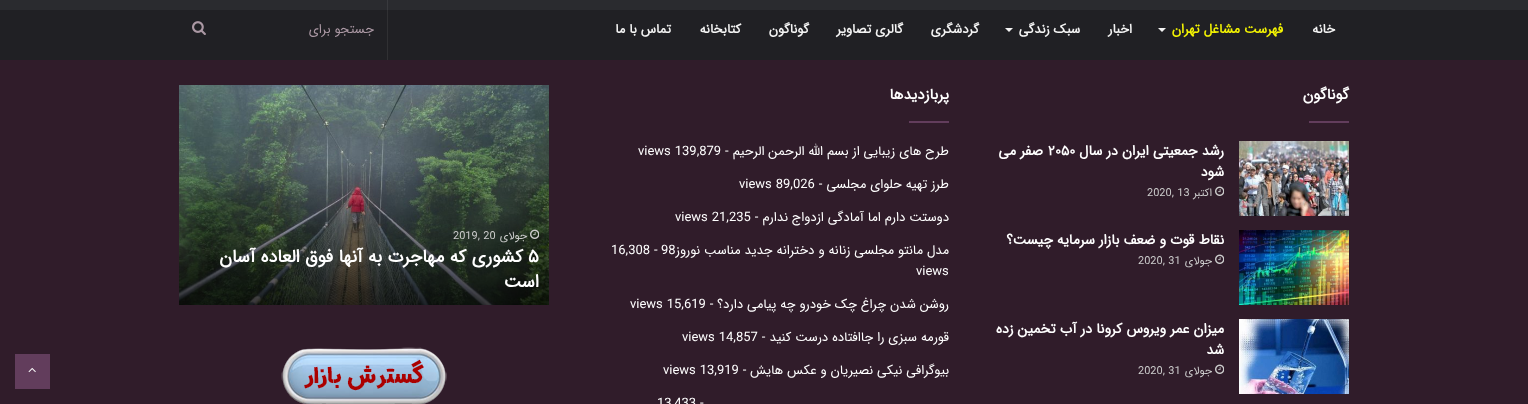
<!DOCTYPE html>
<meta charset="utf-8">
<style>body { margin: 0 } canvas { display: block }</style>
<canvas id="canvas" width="1528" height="404"></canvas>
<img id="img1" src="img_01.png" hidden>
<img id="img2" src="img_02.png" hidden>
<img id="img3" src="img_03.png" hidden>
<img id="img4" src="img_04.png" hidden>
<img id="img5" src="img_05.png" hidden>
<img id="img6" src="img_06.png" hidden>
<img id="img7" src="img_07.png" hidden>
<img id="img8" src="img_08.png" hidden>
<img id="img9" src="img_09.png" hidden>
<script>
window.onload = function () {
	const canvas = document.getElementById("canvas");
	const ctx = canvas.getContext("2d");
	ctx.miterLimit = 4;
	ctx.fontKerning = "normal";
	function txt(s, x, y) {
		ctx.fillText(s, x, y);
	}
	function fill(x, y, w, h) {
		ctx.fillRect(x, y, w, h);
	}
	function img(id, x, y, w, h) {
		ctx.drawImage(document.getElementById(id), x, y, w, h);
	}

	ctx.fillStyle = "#2A2B2F";
	fill(0, 0, 1528, 404);
	ctx.fillStyle = "#393A3E";
	fill(387, 0, 1, 10);
	ctx.fillStyle = "#202024";
	fill(0, 10, 1528, 50);
	ctx.fillStyle = "#F4F4F4";
	ctx.beginPath();
	ctx.moveTo(1158, 28);
	ctx.lineTo(1166, 28);
	ctx.lineTo(1162, 32);
	ctx.closePath();
	ctx.fill();
	ctx.beginPath();
	ctx.moveTo(1005, 28);
	ctx.lineTo(1013, 28);
	ctx.lineTo(1009, 32);
	ctx.closePath();
	ctx.fill();
	img("img1", 192, 21, 14, 14);
	ctx.fillStyle = "#301C2A";
	fill(0, 60, 1528, 344);
	ctx.fillStyle = "#303033";
	fill(387, 10, 1, 50);
	ctx.fillStyle = "#623D5C";
	fill(1309, 121, 40, 2);
	img("img2", 1239, 141, 110, 75);
	img("img3", 1215, 186, 9, 10);
	img("img4", 1239, 230, 110, 75);
	img("img3", 1215, 254, 9, 10);
	img("img5", 1239, 319, 110, 75);
	img("img3", 1215, 364, 9, 10);
	fill(909, 121, 40, 2);
	img("img6", 179, 85, 370, 220);
	img("img7", 530, 229, 9, 10);
	img("img8", 281, 347, 166, 57);
	fill(15, 354, 35, 35);
	img("img9", 28, 367, 8, 6);
	ctx.direction = "rtl";
	ctx.font = "bold 13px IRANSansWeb";
	ctx.fillStyle = "#F4F4F4";
	txt("خانه", 1335, 33);
	ctx.font = "bold 13.25px IRANSansWeb";
	ctx.fillStyle = "#F4F402";
	txt("فهرست مشاغل تهران", 1283, 33);
	ctx.font = "bold 13px IRANSansWeb";
	ctx.fillStyle = "#F4F4F4";
	txt("اخبار", 1132, 33);
	txt("سبک زندگی", 1080, 33);
	txt("گردشگری", 979, 33);
	txt("گالری تصاویر", 903, 33);
	txt("گوناگون", 809, 33);
	txt("کتابخانه", 741, 33);
	txt("تماس با ما", 671, 33);
	ctx.font = "13px IRANSansWeb";
	ctx.fillStyle = "#AC99A5";
	txt("جستجو برای", 374, 33);
	ctx.font = "bold 15px IRANSansWeb";
	ctx.fillStyle = "#FFFFFF";
	txt("گوناگون", 1349, 99);
	ctx.font = "bold 14px IRANSansWeb";
	txt("رشد جمعیتی ایران در سال", 1224, 155);
	ctx.direction = "ltr";
	txt("۲۰۵۰", 1048, 155);
	ctx.direction = "rtl";
	txt("صفر می", 1043, 155);
	txt("شود", 1224, 176);
	ctx.font = "11px IRANSansWeb";
	ctx.fillStyle = "#CCCCCC";
	txt("اکتبر", 1212, 196);
	ctx.direction = "ltr";
	txt("2020, 13", 1147, 196);
	ctx.direction = "rtl";
	ctx.font = "bold 14px IRANSansWeb";
	ctx.fillStyle = "#FFFFFF";
	txt("نقاط قوت و ضعف بازار سرمایه چیست؟", 1224, 244);
	ctx.font = "11px IRANSansWeb";
	ctx.fillStyle = "#CCCCCC";
	txt("جولای", 1212, 264);
	ctx.direction = "ltr";
	txt("2020, 31", 1138, 264);
	ctx.direction = "rtl";
	ctx.font = "bold 14px IRANSansWeb";
	ctx.fillStyle = "#FFFFFF";
	txt("میزان عمر ویروس کرونا در آب تخمین زده", 1224, 333);
	txt("شد", 1224, 354);
	ctx.font = "11px IRANSansWeb";
	ctx.fillStyle = "#CCCCCC";
	txt("جولای", 1212, 374);
	ctx.direction = "ltr";
	txt("2020, 31", 1138, 374);
	ctx.direction = "rtl";
	ctx.font = "bold 15px IRANSansWeb";
	ctx.fillStyle = "#FFFFFF";
	txt("پربازدیدها", 949, 99);
	ctx.font = "13px IRANSansWeb";
	txt("طرح های زیبایی از بسم الله الرحمن الرحیم", 949, 155);
	ctx.direction = "ltr";
	txt("views 139,879 -", 638, 155);
	ctx.direction = "rtl";
	txt("طرز تهیه حلوای مجلسی", 949, 188);
	ctx.direction = "ltr";
	txt("views 89,026 -", 739, 188);
	ctx.direction = "rtl";
	txt("دوستت دارم اما آمادگی ازدواج ندارم", 949, 221);
	ctx.direction = "ltr";
	txt("views 21,235 -", 675, 221);
	txt("98", 661, 254);
	ctx.direction = "rtl";
	txt("مدل مانتو مجلسی زنانه و دخترانه جدید مناسب نوروز", 949, 254);
	ctx.direction = "ltr";
	txt("16,308 -", 611, 254);
	txt("views", 916, 275);
	ctx.direction = "rtl";
	txt("روشن شدن چراغ چک خودرو چه پیامی دارد؟", 949, 308);
	ctx.direction = "ltr";
	txt("views 15,619 -", 630, 308);
	ctx.direction = "rtl";
	txt("قورمه سبزی را جاافتاده درست کنید", 949, 341);
	ctx.direction = "ltr";
	txt("views 14,857 -", 682, 341);
	ctx.direction = "rtl";
	txt("بیوگرافی نیکی نصیریان و عکس هایش", 949, 374);
	ctx.direction = "ltr";
	txt("views 13,919 -", 663, 374);
	txt("13,433 -", 657, 407);
	ctx.direction = "rtl";
	ctx.font = "11px IRANSansWeb";
	ctx.fillStyle = "#CCCCCC";
	txt("جولای", 527, 239);
	ctx.direction = "ltr";
	txt("2019, 20", 453, 239);
	ctx.font = "bold 18px IRANSansWeb";
	ctx.fillStyle = "#FFFFFF";
	txt("۵", 528, 262);
	ctx.direction = "rtl";
	txt("کشوری که مهاجرت به آنها فوق العاده آسان", 523, 262);
	txt("است", 539, 287);
};
</script>
